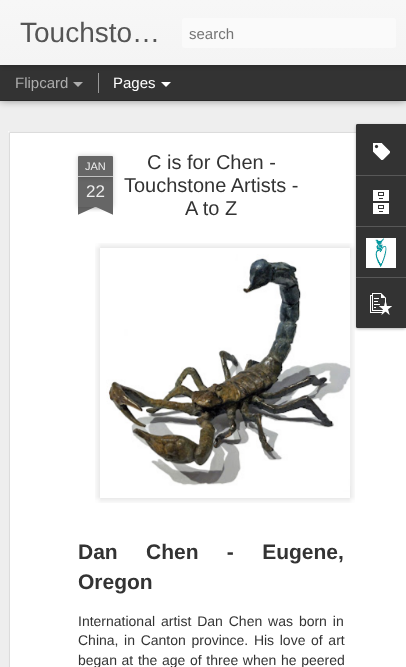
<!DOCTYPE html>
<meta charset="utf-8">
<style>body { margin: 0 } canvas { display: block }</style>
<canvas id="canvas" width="406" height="667"></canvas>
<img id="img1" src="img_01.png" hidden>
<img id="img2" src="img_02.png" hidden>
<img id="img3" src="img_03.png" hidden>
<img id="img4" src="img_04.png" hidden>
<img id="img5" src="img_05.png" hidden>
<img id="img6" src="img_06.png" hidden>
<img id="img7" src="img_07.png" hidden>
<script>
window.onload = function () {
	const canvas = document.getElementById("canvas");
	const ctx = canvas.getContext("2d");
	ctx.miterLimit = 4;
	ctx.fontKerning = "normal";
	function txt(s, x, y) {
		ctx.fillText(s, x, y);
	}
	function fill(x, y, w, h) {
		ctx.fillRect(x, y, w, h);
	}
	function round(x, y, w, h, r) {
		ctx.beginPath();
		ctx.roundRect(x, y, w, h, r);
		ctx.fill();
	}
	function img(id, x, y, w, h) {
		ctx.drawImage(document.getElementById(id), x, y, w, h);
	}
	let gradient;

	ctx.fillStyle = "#333333";
	fill(0, 0, 406, 667);
	ctx.fillStyle = "#EEEEEE";
	fill(0, 101, 406, 566);
	ctx.fillStyle = "rgba(0, 0, 0, 0.5)";
	ctx.filter = "blur(4px)";
	ctx.beginPath();
	ctx.rect(0, 65, 406, 35);
	ctx.fill();
	ctx.filter = "none";
	ctx.fillStyle = "#333333";
	fill(0, 65, 406, 35);
	ctx.fillStyle = "#999999";
	fill(98, 73, 1, 20);
	ctx.fillStyle = "rgba(0, 0, 0, 0.3)";
	ctx.filter = "blur(2.5px)";
	ctx.beginPath();
	ctx.rect(0, 0, 406, 65);
	ctx.fill();
	ctx.filter = "none";
	gradient = ctx.createLinearGradient(0, 0, 0, 65);
	gradient.addColorStop(0, "#F7F7F7");
	gradient.addColorStop(1, "#F4F4F4");
	ctx.fillStyle = gradient;
	fill(0, 0, 406, 65);
	ctx.fillStyle = "#FAFAFA";
	round(182, 18, 214, 30, 3);
	ctx.fillStyle = "#ADADAD";
	ctx.beginPath();
	ctx.moveTo(73, 82);
	ctx.lineTo(83, 82);
	ctx.lineTo(78, 87);
	ctx.closePath();
	ctx.fill();
	ctx.fillStyle = "#FFFFFF";
	ctx.beginPath();
	ctx.moveTo(161, 82);
	ctx.lineTo(171, 82);
	ctx.lineTo(166, 87);
	ctx.closePath();
	ctx.fill();
	fill(8, 131, 398, 536);
	img("img1", 8, 131, 348, 536);
	ctx.fillStyle = "rgba(0, 0, 0, 0.2)";
	ctx.filter = "blur(2.5px)";
	ctx.beginPath();
	ctx.rect(78, 177, 35, 30);
	ctx.fill();
	ctx.filter = "none";
	ctx.fillStyle = "#666666";
	fill(78, 177, 35, 30);
	ctx.fillStyle = "rgba(0, 0, 0, 0.2)";
	ctx.filter = "blur(2.5px)";
	ctx.beginPath();
	ctx.roundRect(78, 156, 35, 21, 1);
	ctx.fill();
	ctx.filter = "none";
	ctx.fillStyle = "#666666";
	ctx.beginPath();
	ctx.roundRect(78, 156, 35, 21, [1, 1, 0, 0]);
	ctx.fill();
	ctx.fillStyle = "#C2C2C2";
	fill(78, 176, 35, 1);
	ctx.save();
	ctx.beginPath();
	ctx.rect(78, 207, 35, 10);
	ctx.clip();
	ctx.fillStyle = "rgba(0, 0, 0, 0.2)";
	ctx.filter = "blur(2.5px)";
	ctx.beginPath();
	ctx.rect(69, 197, 50, 10);
	ctx.fill();
	ctx.filter = "none";
	ctx.restore();
	ctx.save();
	ctx.beginPath();
	ctx.rect(78, 207, 35, 10);
	ctx.clip();
	ctx.fillStyle = "#666666";
	ctx.beginPath();
	ctx.moveTo(69, 208);
	ctx.lineTo(115, 187);
	ctx.lineTo(119, 196);
	ctx.lineTo(73, 217);
	ctx.closePath();
	ctx.fill();
	ctx.restore();
	ctx.save();
	ctx.beginPath();
	ctx.rect(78, 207, 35, 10);
	ctx.clip();
	ctx.fillStyle = "rgba(0, 0, 0, 0.2)";
	ctx.filter = "blur(2.5px)";
	ctx.beginPath();
	ctx.rect(72, 197, 50, 10);
	ctx.fill();
	ctx.filter = "none";
	ctx.restore();
	ctx.save();
	ctx.beginPath();
	ctx.rect(78, 207, 35, 10);
	ctx.clip();
	ctx.fillStyle = "#666666";
	ctx.beginPath();
	ctx.moveTo(76, 187);
	ctx.lineTo(122, 208);
	ctx.lineTo(118, 217);
	ctx.lineTo(72, 196);
	ctx.closePath();
	ctx.fill();
	ctx.restore();
	img("img2", 95, 243, 260, 260);
	img("img3", 109, 258, 242, 228);
	ctx.fillStyle = "rgba(0, 0, 0, 0.3)";
	ctx.filter = "blur(1.5px)";
	ctx.beginPath();
	ctx.roundRect(356, 125, 50, 204, 2);
	ctx.fill();
	ctx.filter = "none";
	ctx.fillStyle = "#333333";
	ctx.beginPath();
	ctx.roundRect(356, 124, 50, 204, [2, 0, 0, 2]);
	ctx.fill();
	ctx.beginPath();
	ctx.roundRect(356, 124, 50, 51, [2, 0, 0, 0]);
	ctx.fill();
	img("img4", 373, 143, 17, 17);
	ctx.fillStyle = "#585858";
	fill(356, 175, 50, 1);
	img("img5", 373, 190, 16, 24);
	fill(356, 226, 50, 1);
	img("img6", 366, 238, 30, 30);
	ctx.fillStyle = "#333333";
	ctx.beginPath();
	ctx.roundRect(356, 277, 50, 51, [0, 0, 0, 2]);
	ctx.fill();
	ctx.fillStyle = "#585858";
	fill(356, 277, 50, 1);
	img("img7", 370, 293, 22, 22);
	ctx.font = "28px Liberation Sans";
	ctx.fillStyle = "#555555";
	txt("Touchsto…", 20, 42);
	ctx.font = "15px Liberation Sans";
	ctx.fillStyle = "#757575";
	txt("search", 189, 39);
	ctx.fillStyle = "#ADADAD";
	txt("Flipcard", 15, 88);
	ctx.fillStyle = "#FFFFFF";
	txt("Pages", 113, 88);
	ctx.font = "11px Liberation Sans";
	ctx.fillStyle = "#EEEEEE";
	txt("JAN", 85, 170);
	ctx.font = "17px Liberation Sans";
	txt("22", 86, 197);
	ctx.font = "20px Liberation Sans";
	ctx.fillStyle = "#333333";
	txt("C is for Chen -", 147, 169);
	txt("Touchstone Artists -", 124, 192);
	txt("A to Z", 185, 215);
	ctx.wordSpacing = "22.5px";
	ctx.font = "bold 21px Liberation Sans";
	txt("Dan Chen - Eugene,", 78, 559);
	ctx.wordSpacing = "0px";
	txt("Oregon", 78, 589);
	ctx.wordSpacing = "2px";
	ctx.font = "14px Liberation Sans";
	txt("International artist Dan Chen was born in", 78, 626);
	ctx.wordSpacing = "1.75px";
	txt("China, in Canton province. His love of art", 78, 645);
	ctx.wordSpacing = "0.75px";
	txt("began at the age of three when he peered", 78, 665);
};
</script>
